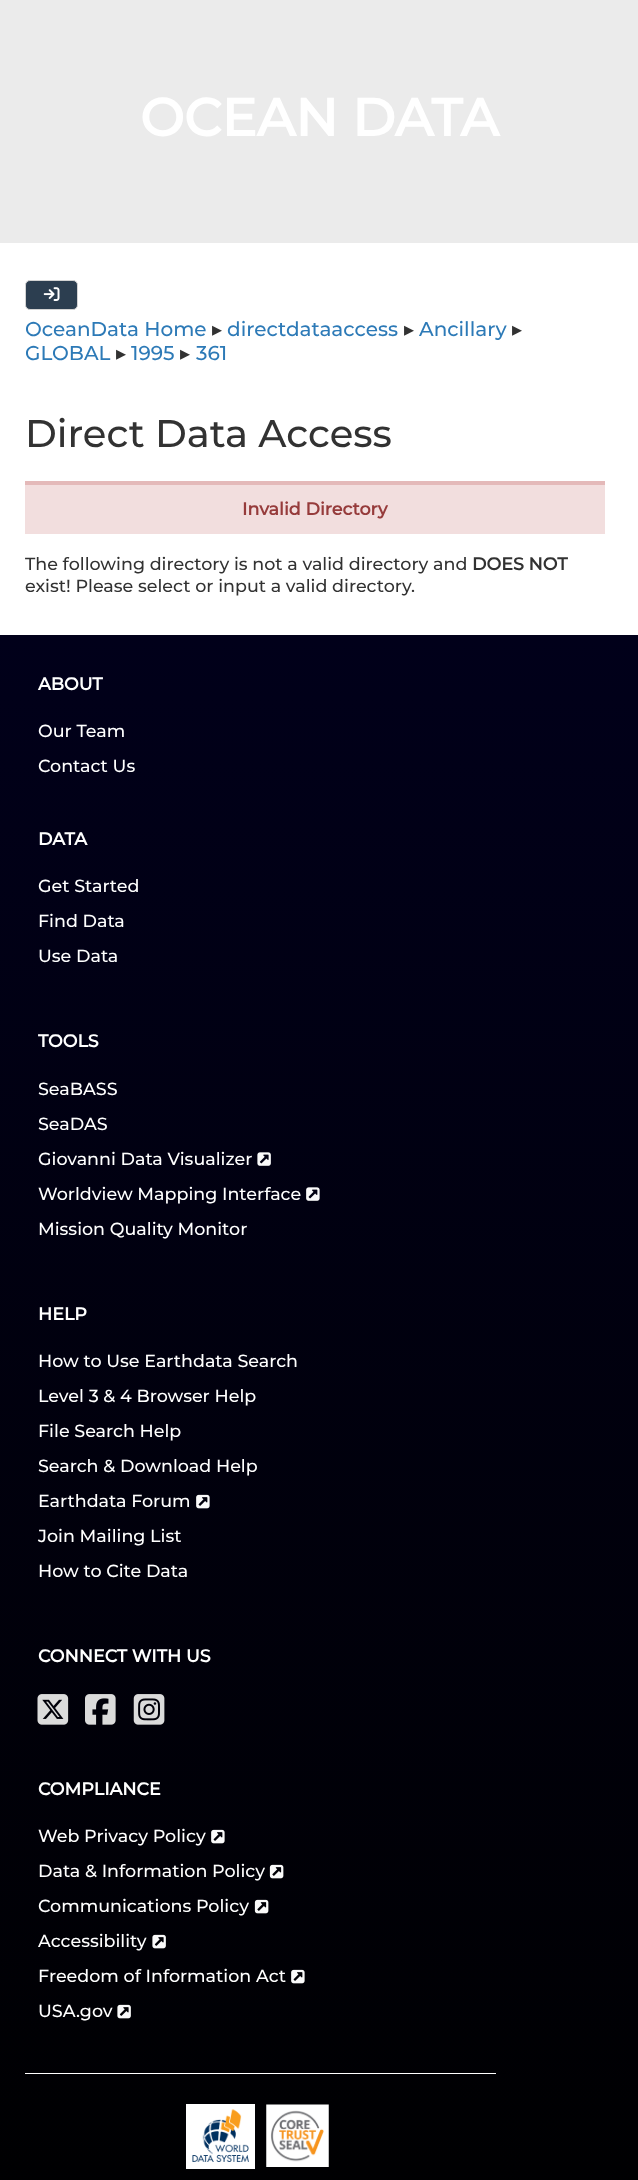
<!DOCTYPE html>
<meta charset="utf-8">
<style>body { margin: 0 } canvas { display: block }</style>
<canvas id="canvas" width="638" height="2180"></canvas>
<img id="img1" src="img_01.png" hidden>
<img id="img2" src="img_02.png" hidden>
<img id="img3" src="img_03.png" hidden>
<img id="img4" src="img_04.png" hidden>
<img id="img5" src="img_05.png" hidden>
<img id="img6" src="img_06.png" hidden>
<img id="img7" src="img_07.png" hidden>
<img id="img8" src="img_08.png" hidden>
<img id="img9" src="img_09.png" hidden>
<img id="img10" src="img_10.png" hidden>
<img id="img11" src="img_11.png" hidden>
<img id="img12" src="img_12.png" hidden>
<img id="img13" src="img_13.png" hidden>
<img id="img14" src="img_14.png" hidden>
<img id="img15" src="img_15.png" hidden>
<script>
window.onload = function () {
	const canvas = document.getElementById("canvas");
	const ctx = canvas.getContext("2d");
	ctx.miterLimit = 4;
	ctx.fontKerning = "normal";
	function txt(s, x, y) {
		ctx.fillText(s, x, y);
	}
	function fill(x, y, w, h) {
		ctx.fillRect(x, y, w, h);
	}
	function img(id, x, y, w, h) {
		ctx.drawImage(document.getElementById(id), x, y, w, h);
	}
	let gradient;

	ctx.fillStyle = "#EBEBEB";
	fill(0, 0, 638, 2180);
	ctx.fillStyle = "#FFFFFF";
	fill(0, 243, 638, 392);
	ctx.fillStyle = "#2C3E50";
	ctx.beginPath();
	ctx.roundRect(25.5, 280.5, 52, 29, 4.5);
	ctx.fill();
	ctx.strokeStyle = "#D3D3D3";
	ctx.stroke();
	img("img1", 43, 287, 17, 14);
	ctx.fillStyle = "#F2DEDE";
	fill(25, 485, 580, 49);
	ctx.fillStyle = "#E4B9B9";
	fill(25, 481, 580, 4);
	gradient = ctx.createLinearGradient(319, 635, 319, 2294);
	gradient.addColorStop(0, "#01001A");
	gradient.addColorStop(1, "#000000");
	ctx.fillStyle = gradient;
	fill(0, 635, 638, 1545);
	img("img2", 257, 1152, 14, 14);
	img("img3", 306, 1187, 14, 14);
	img("img4", 196, 1494, 14, 15);
	img("img5", 37, 1694, 32, 31);
	img("img6", 85, 1694, 31, 31);
	img("img7", 133, 1694, 32, 31);
	img("img8", 211, 1829, 14, 15);
	img("img9", 269, 1864, 15, 15);
	img("img10", 254, 1899, 15, 15);
	img("img11", 152, 1934, 14, 15);
	img("img12", 291, 1969, 14, 15);
	img("img13", 117, 2004, 14, 15);
	ctx.fillStyle = "#FFFFFF";
	fill(25, 2073, 471, 1);
	fill(186, 2104, 69, 65);
	img("img14", 266, 2104, 63, 63);
	img("img15", 192, 2109, 57, 53);
	ctx.font = "bold 52.5px Montserrat";
	txt("OCEAN DATA", 140, 136);
	ctx.font = "100 20px Montserrat";
	ctx.fillStyle = "#2D7AB7";
	txt("OceanData Home", 25, 336);
	ctx.font = "20px DejaVu Sans";
	ctx.fillStyle = "#323232";
	txt("▸", 212, 336);
	ctx.font = "100 20px Montserrat";
	ctx.fillStyle = "#2D7AB7";
	txt("directdataaccess", 227, 336);
	ctx.font = "20px DejaVu Sans";
	ctx.fillStyle = "#323232";
	txt("▸", 404, 336);
	ctx.font = "100 20px Montserrat";
	ctx.fillStyle = "#2D7AB7";
	txt("Ancillary", 419, 336);
	ctx.font = "20px DejaVu Sans";
	ctx.fillStyle = "#323232";
	txt("▸", 512, 336);
	ctx.font = "100 20px Montserrat";
	ctx.fillStyle = "#2D7AB7";
	txt("GLOBAL", 25, 360);
	ctx.font = "20px DejaVu Sans";
	ctx.fillStyle = "#323232";
	txt("▸", 116, 360);
	ctx.font = "100 20px Montserrat";
	ctx.fillStyle = "#2D7AB7";
	txt("1995", 131, 360);
	ctx.font = "20px DejaVu Sans";
	ctx.fillStyle = "#323232";
	txt("▸", 180, 360);
	ctx.font = "100 20px Montserrat";
	ctx.fillStyle = "#2D7AB7";
	txt("361", 196, 360);
	ctx.font = "100 38.5px Montserrat";
	ctx.fillStyle = "#323232";
	txt("Direct Data Access", 25, 447);
	ctx.font = "bold 17.5px Montserrat";
	ctx.fillStyle = "#963B3B";
	txt("Invalid Directory", 242, 515);
	ctx.font = "100 17.5px Montserrat";
	ctx.fillStyle = "#323232";
	txt("The following directory is not a valid directory and", 25, 570);
	ctx.font = "bold 17.5px Montserrat";
	txt("DOES NOT", 472, 570);
	ctx.font = "100 17.5px Montserrat";
	txt("exist! Please select or input a valid directory.", 25, 592);
	ctx.font = "bold 17.5px Montserrat";
	ctx.fillStyle = "#FFFFFF";
	txt("ABOUT", 38, 690);
	ctx.font = "100 17.5px Montserrat";
	txt("Our Team", 38, 737);
	txt("Contact Us", 38, 772);
	ctx.font = "bold 17.5px Montserrat";
	txt("DATA", 38, 845);
	ctx.font = "100 17.5px Montserrat";
	txt("Get Started", 38, 892);
	txt("Find Data", 38, 927);
	txt("Use Data", 38, 962);
	ctx.font = "bold 17.5px Montserrat";
	txt("TOOLS", 38, 1047);
	ctx.font = "100 17.5px Montserrat";
	txt("SeaBASS", 38, 1095);
	txt("SeaDAS", 38, 1130);
	txt("Giovanni Data Visualizer", 38, 1165);
	txt("Worldview Mapping Interface", 38, 1200);
	txt("Mission Quality Monitor", 38, 1235);
	ctx.font = "bold 17.5px Montserrat";
	txt("HELP", 38, 1320);
	ctx.font = "100 17.5px Montserrat";
	txt("How to Use Earthdata Search", 38, 1367);
	txt("Level 3 & 4 Browser Help", 38, 1402);
	txt("File Search Help", 38, 1437);
	txt("Search & Download Help", 38, 1472);
	txt("Earthdata Forum", 38, 1507);
	txt("Join Mailing List", 38, 1542);
	txt("How to Cite Data", 38, 1577);
	ctx.font = "bold 17.5px Montserrat";
	txt("CONNECT WITH US", 38, 1662);
	txt("COMPLIANCE", 38, 1795);
	ctx.font = "100 17.5px Montserrat";
	txt("Web Privacy Policy", 38, 1842);
	txt("Data & Information Policy", 38, 1877);
	txt("Communications Policy", 38, 1912);
	txt("Accessibility", 38, 1947);
	txt("Freedom of Information Act", 38, 1982);
	txt("USA.gov", 38, 2017);
};
</script>
